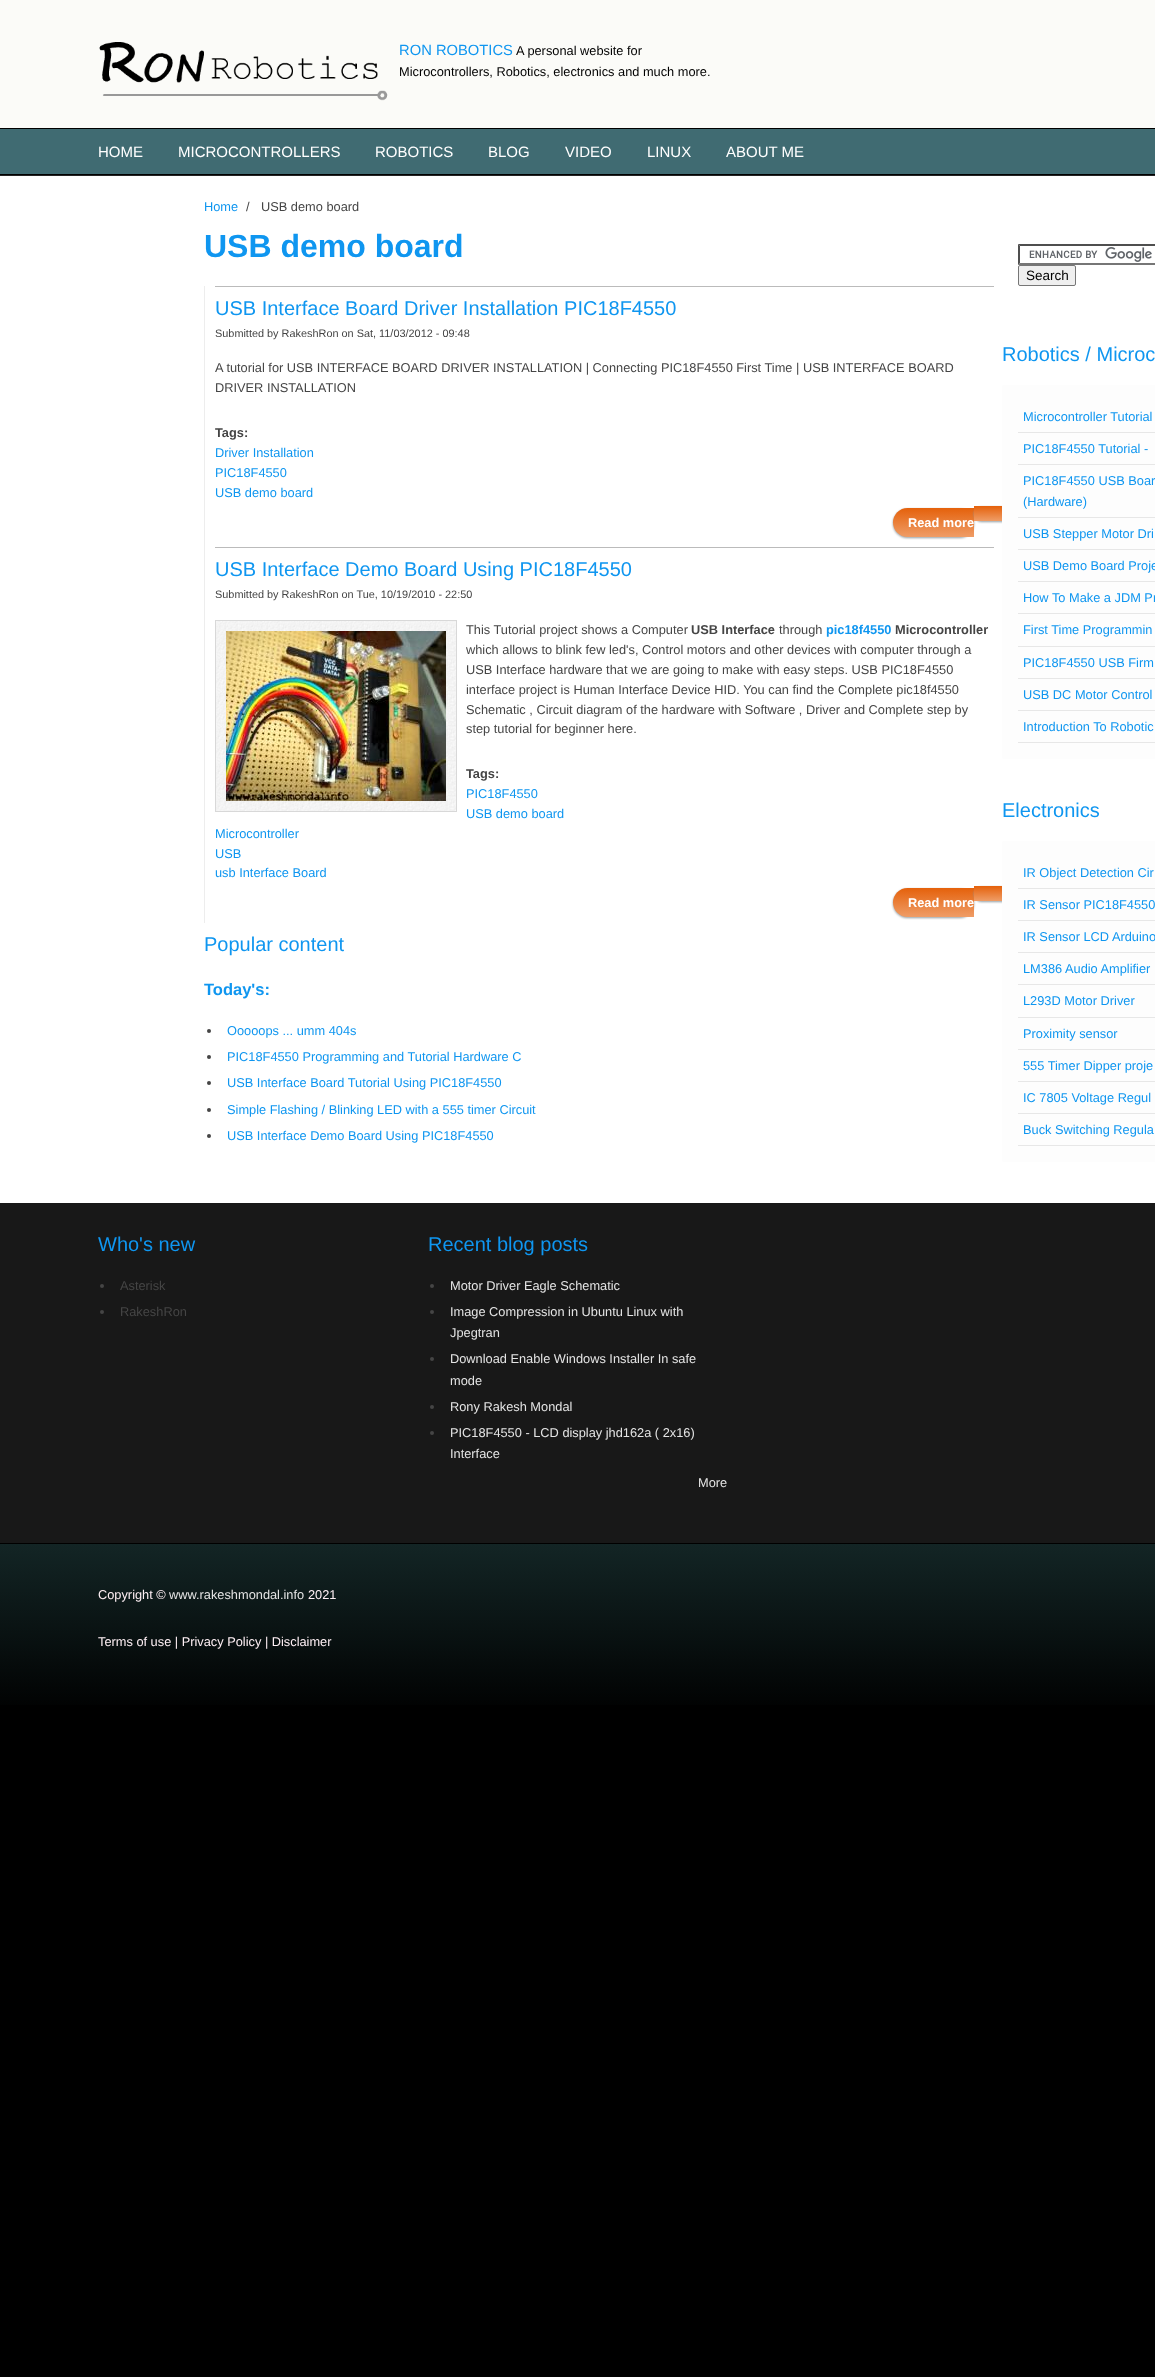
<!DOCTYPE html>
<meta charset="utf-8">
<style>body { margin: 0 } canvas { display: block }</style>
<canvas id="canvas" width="1155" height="2377"></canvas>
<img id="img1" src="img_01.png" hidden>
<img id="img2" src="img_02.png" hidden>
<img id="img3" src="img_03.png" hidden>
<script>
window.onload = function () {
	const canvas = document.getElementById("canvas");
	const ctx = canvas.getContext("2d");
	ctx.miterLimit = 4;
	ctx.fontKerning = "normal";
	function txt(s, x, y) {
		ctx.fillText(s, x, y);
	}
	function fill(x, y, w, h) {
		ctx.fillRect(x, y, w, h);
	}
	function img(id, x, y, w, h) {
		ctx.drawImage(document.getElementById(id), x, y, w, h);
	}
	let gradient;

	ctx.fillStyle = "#000000";
	fill(0, 0, 1155, 2377);
	ctx.fillStyle = "#FBFBF8";
	fill(0, 0, 1155, 128);
	img("img1", 99, 42, 289, 59);
	ctx.fillStyle = "#406B72";
	fill(0, 129, 1155, 45);
	ctx.fillStyle = "#232323";
	fill(0, 175, 1155, 1);
	ctx.fillStyle = "#FFFFFF";
	fill(0, 176, 1155, 1027);
	ctx.fillStyle = "#EDEDED";
	fill(204, 286, 1, 637);
	ctx.fillStyle = "#BBBBBB";
	fill(215, 286, 779, 1);
	ctx.fillStyle = "#939DA2";
	ctx.filter = "blur(1px)";
	ctx.beginPath();
	ctx.roundRect(893, 509, 81, 29, 14.5);
	ctx.fill();
	ctx.filter = "none";
	gradient = ctx.createLinearGradient(934, 508, 934, 537);
	gradient.addColorStop(0, "#E5610B");
	gradient.addColorStop(1, "#EF9D67");
	ctx.fillStyle = gradient;
	ctx.beginPath();
	ctx.roundRect(893, 508, 81, 29, [14.5, 0, 0, 14.5]);
	ctx.fill();
	ctx.fillStyle = "#939DA2";
	ctx.filter = "blur(1px)";
	ctx.beginPath();
	ctx.roundRect(974, 507, 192, 15, 7.5);
	ctx.fill();
	ctx.filter = "none";
	gradient = ctx.createLinearGradient(1072, 506, 1072, 521);
	gradient.addColorStop(0, "#E5610B");
	gradient.addColorStop(1, "#EF9D67");
	ctx.fillStyle = gradient;
	fill(974, 506, 28, 15);
	ctx.fillStyle = "#BBBBBB";
	fill(215, 547, 779, 1);
	img("img2", 216, 621, 240, 190);
	ctx.strokeStyle = "#D8D8D8";
	ctx.strokeRect(215.5, 620.5, 241, 191);
	ctx.fillStyle = "#939DA2";
	ctx.filter = "blur(1px)";
	ctx.beginPath();
	ctx.roundRect(893, 889, 81, 29, 14.5);
	ctx.fill();
	ctx.filter = "none";
	gradient = ctx.createLinearGradient(934, 888, 934, 917);
	gradient.addColorStop(0, "#E5610B");
	gradient.addColorStop(1, "#EF9D67");
	ctx.fillStyle = gradient;
	ctx.beginPath();
	ctx.roundRect(893, 888, 81, 29, [14.5, 0, 0, 14.5]);
	ctx.fill();
	ctx.fillStyle = "#939DA2";
	ctx.filter = "blur(1px)";
	ctx.beginPath();
	ctx.roundRect(974, 887, 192, 15, 7.5);
	ctx.fill();
	ctx.filter = "none";
	gradient = ctx.createLinearGradient(1072, 886, 1072, 901);
	gradient.addColorStop(0, "#E5610B");
	gradient.addColorStop(1, "#EF9D67");
	ctx.fillStyle = gradient;
	fill(974, 886, 28, 15);
	ctx.fillStyle = "#454545";
	ctx.beginPath();
	ctx.arc(209, 1031, 2, 0, Math.PI * 2);
	ctx.fill();
	ctx.beginPath();
	ctx.arc(209, 1057, 2, 0, Math.PI * 2);
	ctx.fill();
	ctx.beginPath();
	ctx.arc(209, 1083, 2, 0, Math.PI * 2);
	ctx.fill();
	ctx.beginPath();
	ctx.arc(209, 1110, 2, 0, Math.PI * 2);
	ctx.fill();
	ctx.beginPath();
	ctx.arc(209, 1136, 2, 0, Math.PI * 2);
	ctx.fill();
	img("img3", 1029, 247, 123, 15);
	ctx.fillStyle = "#4F4F4F";
	ctx.beginPath();
	ctx.moveTo(1018, 244);
	ctx.lineTo(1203, 244);
	ctx.lineTo(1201, 246);
	ctx.lineTo(1020, 246);
	ctx.closePath();
	ctx.fill();
	ctx.fillStyle = "#767676";
	ctx.beginPath();
	ctx.moveTo(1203, 265);
	ctx.lineTo(1018, 265);
	ctx.lineTo(1020, 263);
	ctx.lineTo(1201, 263);
	ctx.closePath();
	ctx.fill();
	ctx.fillStyle = "#4F4F4F";
	ctx.beginPath();
	ctx.moveTo(1018, 265);
	ctx.lineTo(1018, 244);
	ctx.lineTo(1020, 246);
	ctx.lineTo(1020, 263);
	ctx.closePath();
	ctx.fill();
	ctx.fillStyle = "#EFEFEF";
	ctx.beginPath();
	ctx.roundRect(1018.5, 265.5, 57, 20, 1.5);
	ctx.fill();
	ctx.strokeStyle = "#767676";
	ctx.stroke();
	ctx.fillStyle = "#FDFDFD";
	ctx.beginPath();
	ctx.roundRect(1002, 385, 153, 374, [2, 0, 0, 2]);
	ctx.fill();
	ctx.fillStyle = "#E7E7E7";
	fill(1018, 432, 137, 1);
	fill(1018, 464, 137, 1);
	fill(1018, 517, 137, 1);
	fill(1018, 549, 137, 1);
	fill(1018, 581, 137, 1);
	fill(1018, 613, 137, 1);
	fill(1018, 646, 137, 1);
	fill(1018, 678, 137, 1);
	fill(1018, 710, 137, 1);
	fill(1018, 742, 137, 1);
	ctx.fillStyle = "#FDFDFD";
	ctx.beginPath();
	ctx.roundRect(1002, 841, 153, 321, [2, 0, 0, 2]);
	ctx.fill();
	ctx.fillStyle = "#E7E7E7";
	fill(1018, 888, 137, 1);
	fill(1018, 920, 137, 1);
	fill(1018, 952, 137, 1);
	fill(1018, 984, 137, 1);
	fill(1018, 1017, 137, 1);
	fill(1018, 1049, 137, 1);
	fill(1018, 1081, 137, 1);
	fill(1018, 1113, 137, 1);
	fill(1018, 1145, 137, 1);
	ctx.fillStyle = "#181818";
	fill(0, 1203, 1155, 340);
	ctx.fillStyle = "#454545";
	ctx.beginPath();
	ctx.arc(102, 1286, 2, 0, Math.PI * 2);
	ctx.fill();
	ctx.beginPath();
	ctx.arc(102, 1312, 2, 0, Math.PI * 2);
	ctx.fill();
	ctx.beginPath();
	ctx.arc(432, 1286, 2, 0, Math.PI * 2);
	ctx.fill();
	ctx.beginPath();
	ctx.arc(432, 1312, 2, 0, Math.PI * 2);
	ctx.fill();
	ctx.beginPath();
	ctx.arc(432, 1359, 2, 0, Math.PI * 2);
	ctx.fill();
	ctx.beginPath();
	ctx.arc(432, 1407, 2, 0, Math.PI * 2);
	ctx.fill();
	ctx.beginPath();
	ctx.arc(432, 1433, 2, 0, Math.PI * 2);
	ctx.fill();
	gradient = ctx.createLinearGradient(578, 1544, 578, 1717);
	gradient.addColorStop(0, "#132525");
	gradient.addColorStop(1, "#000000");
	ctx.fillStyle = gradient;
	fill(0, 1544, 1155, 161);
	ctx.font = "14.75px Liberation Sans";
	ctx.fillStyle = "#0F96F0";
	txt("RON ROBOTICS", 399, 55);
	ctx.font = "12.8px Liberation Sans";
	ctx.fillStyle = "#000000";
	txt("A personal website for", 516, 55);
	txt("Microcontrollers, Robotics, electronics and much more.", 399, 76);
	ctx.font = "15px Liberation Sans";
	ctx.fillStyle = "#FFFFFF";
	txt("HOME", 98, 157);
	txt("MICROCONTROLLERS", 178, 157);
	txt("ROBOTICS", 375, 157);
	txt("BLOG", 488, 157);
	txt("VIDEO", 565, 157);
	txt("LINUX", 647, 157);
	txt("ABOUT ME", 726, 157);
	ctx.font = "12.8px Liberation Sans";
	ctx.fillStyle = "#0F96F0";
	txt("Home", 204, 211);
	ctx.fillStyle = "#454545";
	txt("/", 246, 211);
	txt("USB demo board", 261, 211);
	ctx.font = "bold 32px Liberation Sans";
	ctx.fillStyle = "#0F96F0";
	txt("USB demo board", 204, 257);
	ctx.font = "20px Liberation Sans";
	txt("USB Interface Board Driver Installation PIC18F4550", 215, 315);
	ctx.font = "10.9px Liberation Sans";
	ctx.fillStyle = "#454545";
	txt("Submitted by RakeshRon on Sat, 11/03/2012 - 09:48", 215, 337);
	ctx.font = "12.8px Liberation Sans";
	txt("A tutorial for USB INTERFACE BOARD DRIVER INSTALLATION | Connecting PIC18F4550 First Time | USB INTERFACE BOARD", 215, 372);
	txt("DRIVER INSTALLATION", 215, 392);
	ctx.font = "bold 12.8px Liberation Sans";
	txt("Tags:", 215, 437);
	ctx.font = "12.8px Liberation Sans";
	ctx.fillStyle = "#0F96F0";
	txt("Driver Installation", 215, 457);
	txt("PIC18F4550", 215, 477);
	txt("USB demo board", 215, 497);
	ctx.font = "bold 12.8px Liberation Sans";
	ctx.fillStyle = "#FFFFFF";
	txt("Read more", 908, 527);
	ctx.font = "20px Liberation Sans";
	ctx.fillStyle = "#0F96F0";
	txt("USB Interface Demo Board Using PIC18F4550", 215, 576);
	ctx.font = "10.9px Liberation Sans";
	ctx.fillStyle = "#454545";
	txt("Submitted by RakeshRon on Tue, 10/19/2010 - 22:50", 215, 598);
	ctx.font = "12.8px Liberation Sans";
	txt("This Tutorial project shows a Computer", 466, 634);
	ctx.font = "bold 12.8px Liberation Sans";
	txt("USB Interface", 691, 634);
	ctx.font = "12.8px Liberation Sans";
	txt("through", 779, 634);
	ctx.font = "bold 12.8px Liberation Sans";
	ctx.fillStyle = "#0F96F0";
	txt("pic18f4550", 826, 634);
	ctx.fillStyle = "#454545";
	txt("Microcontroller", 895, 634);
	ctx.font = "12.8px Liberation Sans";
	txt("which allows to blink few led's, Control motors and other devices with computer through a", 466, 654);
	txt("USB Interface hardware that we are going to make with easy steps. USB PIC18F4550", 466, 674);
	txt("interface project is Human Interface Device HID. You can find the Complete pic18f4550", 466, 694);
	txt("Schematic , Circuit diagram of the hardware with Software , Driver and Complete step by", 466, 714);
	txt("step tutorial for beginner here.", 466, 733);
	ctx.font = "bold 12.8px Liberation Sans";
	txt("Tags:", 466, 778);
	ctx.font = "12.8px Liberation Sans";
	ctx.fillStyle = "#0F96F0";
	txt("PIC18F4550", 466, 798);
	txt("USB demo board", 466, 818);
	txt("Microcontroller", 215, 838);
	txt("USB", 215, 858);
	txt("usb Interface Board", 215, 877);
	ctx.font = "bold 12.8px Liberation Sans";
	ctx.fillStyle = "#FFFFFF";
	txt("Read more", 908, 907);
	ctx.font = "20px Liberation Sans";
	ctx.fillStyle = "#0F96F0";
	txt("Popular content", 204, 951);
	ctx.font = "bold 16.5px Liberation Sans";
	txt("Today's:", 204, 995);
	ctx.font = "12.8px Liberation Sans";
	txt("Ooooops ... umm 404s", 227, 1035);
	txt("PIC18F4550 Programming and Tutorial Hardware C", 227, 1061);
	txt("USB Interface Board Tutorial Using PIC18F4550", 227, 1087);
	txt("Simple Flashing / Blinking LED with a 555 timer Circuit", 227, 1114);
	txt("USB Interface Demo Board Using PIC18F4550", 227, 1140);
	ctx.font = "13.5px Liberation Sans";
	ctx.fillStyle = "#000000";
	txt("Search", 1026, 280);
	ctx.font = "20px Liberation Sans";
	ctx.fillStyle = "#0F96F0";
	txt("Robotics / Microc", 1002, 361);
	ctx.font = "12.8px Liberation Sans";
	txt("Microcontroller Tutorial", 1023, 421);
	txt("PIC18F4550 Tutorial -", 1023, 453);
	txt("PIC18F4550 USB Boar", 1023, 485);
	txt("(Hardware)", 1023, 506);
	txt("USB Stepper Motor Dri", 1023, 538);
	txt("USB Demo Board Proje", 1023, 570);
	txt("How To Make a JDM Pr", 1023, 602);
	txt("First Time Programmin", 1023, 634);
	txt("PIC18F4550 USB Firm", 1023, 667);
	txt("USB DC Motor Control", 1023, 699);
	txt("Introduction To Robotic", 1023, 731);
	ctx.font = "20px Liberation Sans";
	txt("Electronics", 1002, 817);
	ctx.font = "12.8px Liberation Sans";
	txt("IR Object Detection Cir", 1023, 877);
	txt("IR Sensor PIC18F4550", 1023, 909);
	txt("IR Sensor LCD Arduino", 1023, 941);
	txt("LM386 Audio Amplifier", 1023, 973);
	txt("L293D Motor Driver", 1023, 1005);
	txt("Proximity sensor", 1023, 1038);
	txt("555 Timer Dipper proje", 1023, 1070);
	txt("IC 7805 Voltage Regul", 1023, 1102);
	txt("Buck Switching Regula", 1023, 1134);
	ctx.font = "20px Liberation Sans";
	txt("Who's new", 98, 1251);
	ctx.font = "12.8px Liberation Sans";
	ctx.fillStyle = "#454545";
	txt("Asterisk", 120, 1290);
	txt("RakeshRon", 120, 1316);
	ctx.font = "20px Liberation Sans";
	ctx.fillStyle = "#0F96F0";
	txt("Recent blog posts", 428, 1251);
	ctx.font = "12.8px Liberation Sans";
	ctx.fillStyle = "#E4E4E4";
	txt("Motor Driver Eagle Schematic", 450, 1290);
	txt("Image Compression in Ubuntu Linux with", 450, 1316);
	txt("Jpegtran", 450, 1337);
	txt("Download Enable Windows Installer In safe", 450, 1363);
	txt("mode", 450, 1385);
	txt("Rony Rakesh Mondal", 450, 1411);
	txt("PIC18F4550 - LCD display jhd162a ( 2x16)", 450, 1437);
	txt("Interface", 450, 1458);
	txt("More", 698, 1487);
	ctx.fillStyle = "#FFF0F5";
	txt("Copyright ©", 98, 1599);
	ctx.fillStyle = "#E4E4E4";
	txt("www.rakeshmondal.info", 169, 1599);
	ctx.fillStyle = "#FFF0F5";
	txt("2021", 308, 1599);
	txt("Terms of use | Privacy Policy | Disclaimer", 98, 1646);
};
</script>
